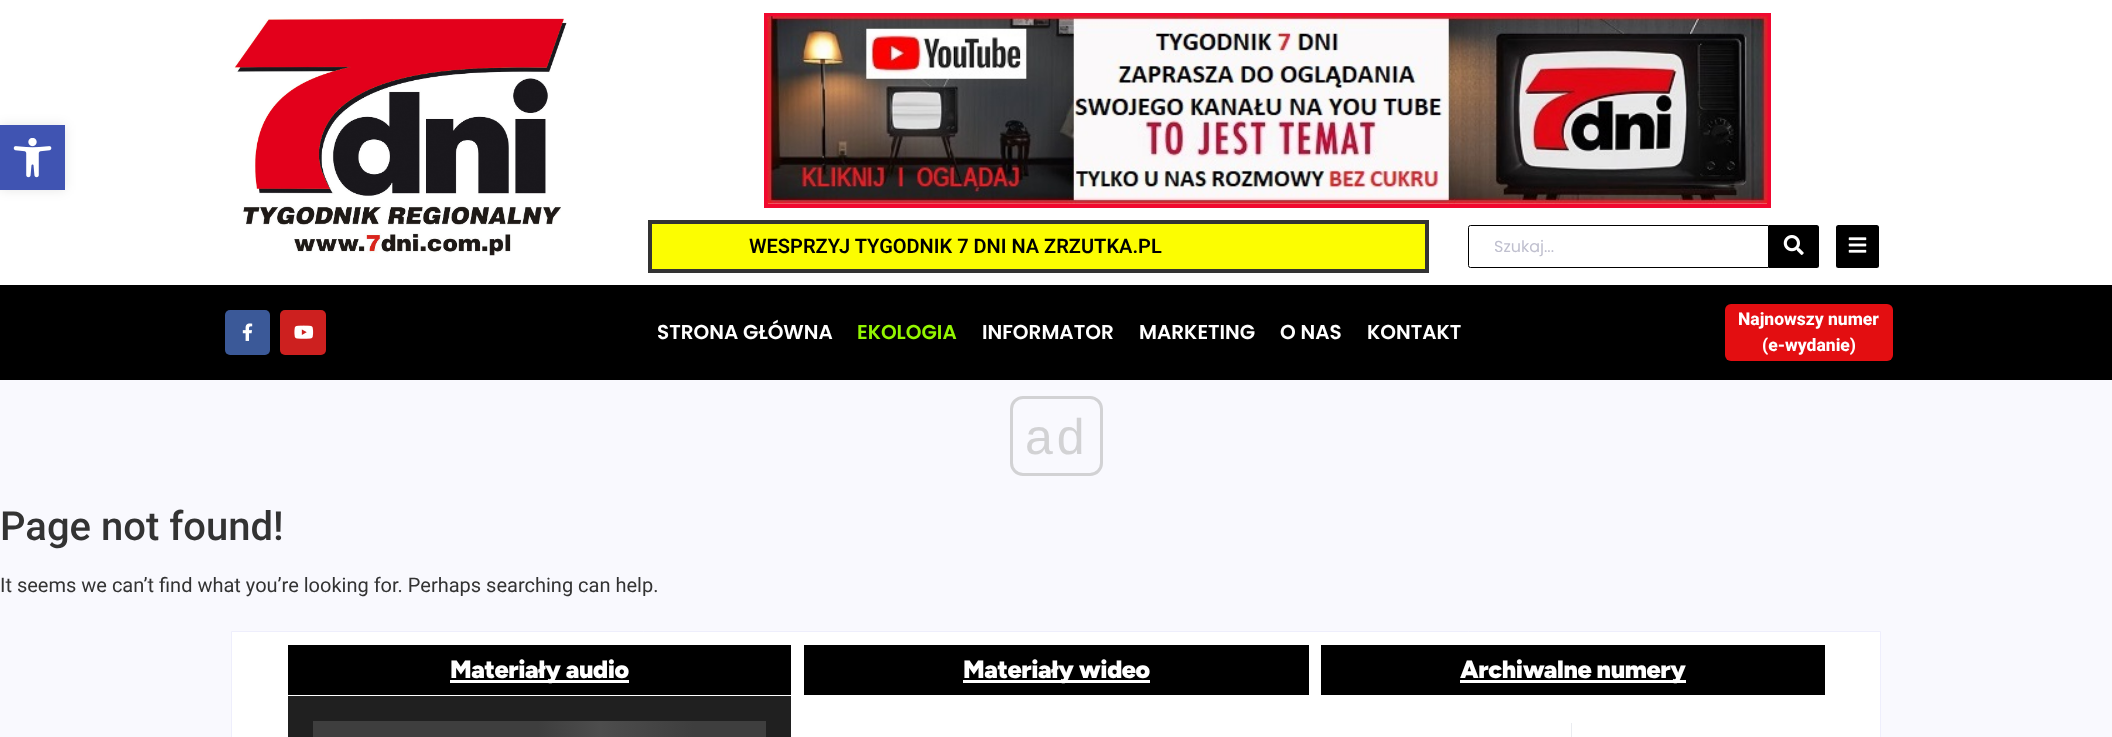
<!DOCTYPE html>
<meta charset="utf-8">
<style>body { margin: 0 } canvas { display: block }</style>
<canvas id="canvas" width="2112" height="737"></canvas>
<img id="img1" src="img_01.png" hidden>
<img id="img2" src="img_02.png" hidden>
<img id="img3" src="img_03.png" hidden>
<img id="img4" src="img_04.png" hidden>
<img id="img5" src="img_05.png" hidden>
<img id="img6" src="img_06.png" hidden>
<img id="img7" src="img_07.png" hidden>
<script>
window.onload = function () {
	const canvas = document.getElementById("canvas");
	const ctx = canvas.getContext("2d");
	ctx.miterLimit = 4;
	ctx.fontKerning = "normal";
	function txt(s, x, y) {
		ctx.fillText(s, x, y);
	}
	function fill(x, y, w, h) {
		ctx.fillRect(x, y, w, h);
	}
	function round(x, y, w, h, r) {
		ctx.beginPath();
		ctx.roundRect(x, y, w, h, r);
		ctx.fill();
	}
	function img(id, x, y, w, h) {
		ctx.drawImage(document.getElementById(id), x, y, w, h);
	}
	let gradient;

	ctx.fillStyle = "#F9F9FE";
	fill(0, 0, 2112, 737);
	ctx.fillStyle = "#FFFFFF";
	fill(0, 0, 2112, 285);
	ctx.fillStyle = "rgba(0, 0, 0, 0.1)";
	ctx.filter = "blur(6px)";
	ctx.beginPath();
	ctx.rect(0, 125, 65, 65);
	ctx.fill();
	ctx.filter = "none";
	ctx.fillStyle = "#4054B2";
	fill(0, 125, 65, 65);
	img("img1", 13, 138, 39, 40);
	img("img2", 234, 18, 333, 238);
	ctx.strokeStyle = "#F1082F";
	ctx.lineWidth = 4;
	ctx.strokeRect(766, 15, 1003, 191);
	img("img3", 767, 16, 1001, 188);
	ctx.fillStyle = "#FCFD01";
	ctx.beginPath();
	ctx.rect(650, 222, 777, 49);
	ctx.fill();
	ctx.strokeStyle = "#333333";
	ctx.stroke();
	ctx.beginPath();
	ctx.roundRect(1468.5, 225.5, 300, 42, [2, 0, 0, 2]);
	ctx.strokeStyle = "#000000";
	ctx.lineWidth = 1;
	ctx.stroke();
	ctx.fillStyle = "#000000";
	ctx.beginPath();
	ctx.roundRect(1769, 225, 50, 43, [0, 2.5, 2.5, 0]);
	ctx.fill();
	img("img4", 1783, 235, 21, 20);
	round(1836, 225, 43, 43, 2.5);
	img("img5", 1848, 237, 19, 16);
	fill(0, 285, 2112, 95);
	ctx.fillStyle = "#3B5998";
	round(225, 310, 45, 45, 5);
	img("img6", 242, 323, 11, 18);
	ctx.fillStyle = "#CD201F";
	round(280, 310, 46, 45, 5);
	img("img7", 294, 325, 20, 14);
	ctx.fillStyle = "#E30E11";
	round(1725, 304, 168, 57, 6);
	ctx.beginPath();
	ctx.roundRect(1011.5, 397.5, 90, 77, 11.5);
	ctx.strokeStyle = "#D2D2D4";
	ctx.lineWidth = 3;
	ctx.stroke();
	ctx.fillStyle = "#FFFFFF";
	ctx.beginPath();
	ctx.rect(231.5, 631.5, 1649, 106);
	ctx.fill();
	ctx.strokeStyle = "#EEEEFC";
	ctx.lineWidth = 1;
	ctx.stroke();
	ctx.fillStyle = "#000000";
	fill(288, 645, 503, 50);
	ctx.fillStyle = "#FFFFFF";
	fill(450, 680, 179, 3);
	ctx.fillStyle = "#202020";
	fill(288, 696, 503, 41);
	ctx.fillStyle = "#3E3E3E";
	fill(313, 721, 175, 16);
	gradient = ctx.createLinearGradient(488, 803, 1113, 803);
	gradient.addColorStop(0.08, "#3E3E3E");
	gradient.addColorStop(0.18, "#4D4D4D");
	gradient.addColorStop(0.33, "#3E3E3E");
	ctx.fillStyle = gradient;
	fill(488, 721, 278, 16);
	ctx.fillStyle = "#000000";
	fill(804, 645, 505, 50);
	ctx.fillStyle = "#FFFFFF";
	fill(963, 680, 187, 3);
	ctx.fillStyle = "#000000";
	fill(1321, 645, 504, 50);
	ctx.fillStyle = "#FFFFFF";
	fill(1460, 680, 226, 3);
	ctx.fillStyle = "#EAECF0";
	fill(1571, 723, 1, 14);
	ctx.font = "600 20px Roboto";
	ctx.fillStyle = "#000000";
	txt("WESPRZYJ TYGODNIK 7 DNI NA ZRZUTKA.PL", 749, 253);
	ctx.font = "16px Poppins";
	ctx.fillStyle = "#C0C0CF";
	txt("Szukaj...", 1494, 252);
	ctx.font = "600 20px Poppins";
	ctx.fillStyle = "#FFFFFF";
	txt("STRONA GŁÓWNA", 657, 339);
	ctx.fillStyle = "#93F600";
	txt("EKOLOGIA", 857, 339);
	ctx.fillStyle = "#FFFFFF";
	txt("INFORMATOR", 982, 339);
	txt("MARKETING", 1139, 339);
	txt("O NAS", 1280, 339);
	txt("KONTAKT", 1367, 339);
	ctx.font = "800 17.5px Roboto";
	txt("Najnowszy numer", 1738, 325);
	txt("(e-wydanie)", 1762, 351);
	ctx.letterSpacing = "4px";
	ctx.font = "50px Liberation Sans";
	ctx.fillStyle = "#D2D2D4";
	txt("ad", 1025, 454);
	ctx.letterSpacing = "0px";
	ctx.font = "500 40px Roboto";
	ctx.fillStyle = "#333333";
	txt("Page not found!", 0, 540);
	ctx.font = "20px Roboto";
	txt("It seems we can’t find what you’re looking for. Perhaps searching can help.", 0, 592);
	ctx.letterSpacing = "-0.4px";
	ctx.font = "900 25px Figtree";
	ctx.fillStyle = "#FFFFFF";
	txt("Materiały audio", 450, 678);
	txt("Materiały wideo", 963, 678);
	txt("Archiwalne numery", 1460, 678);
};
</script>
